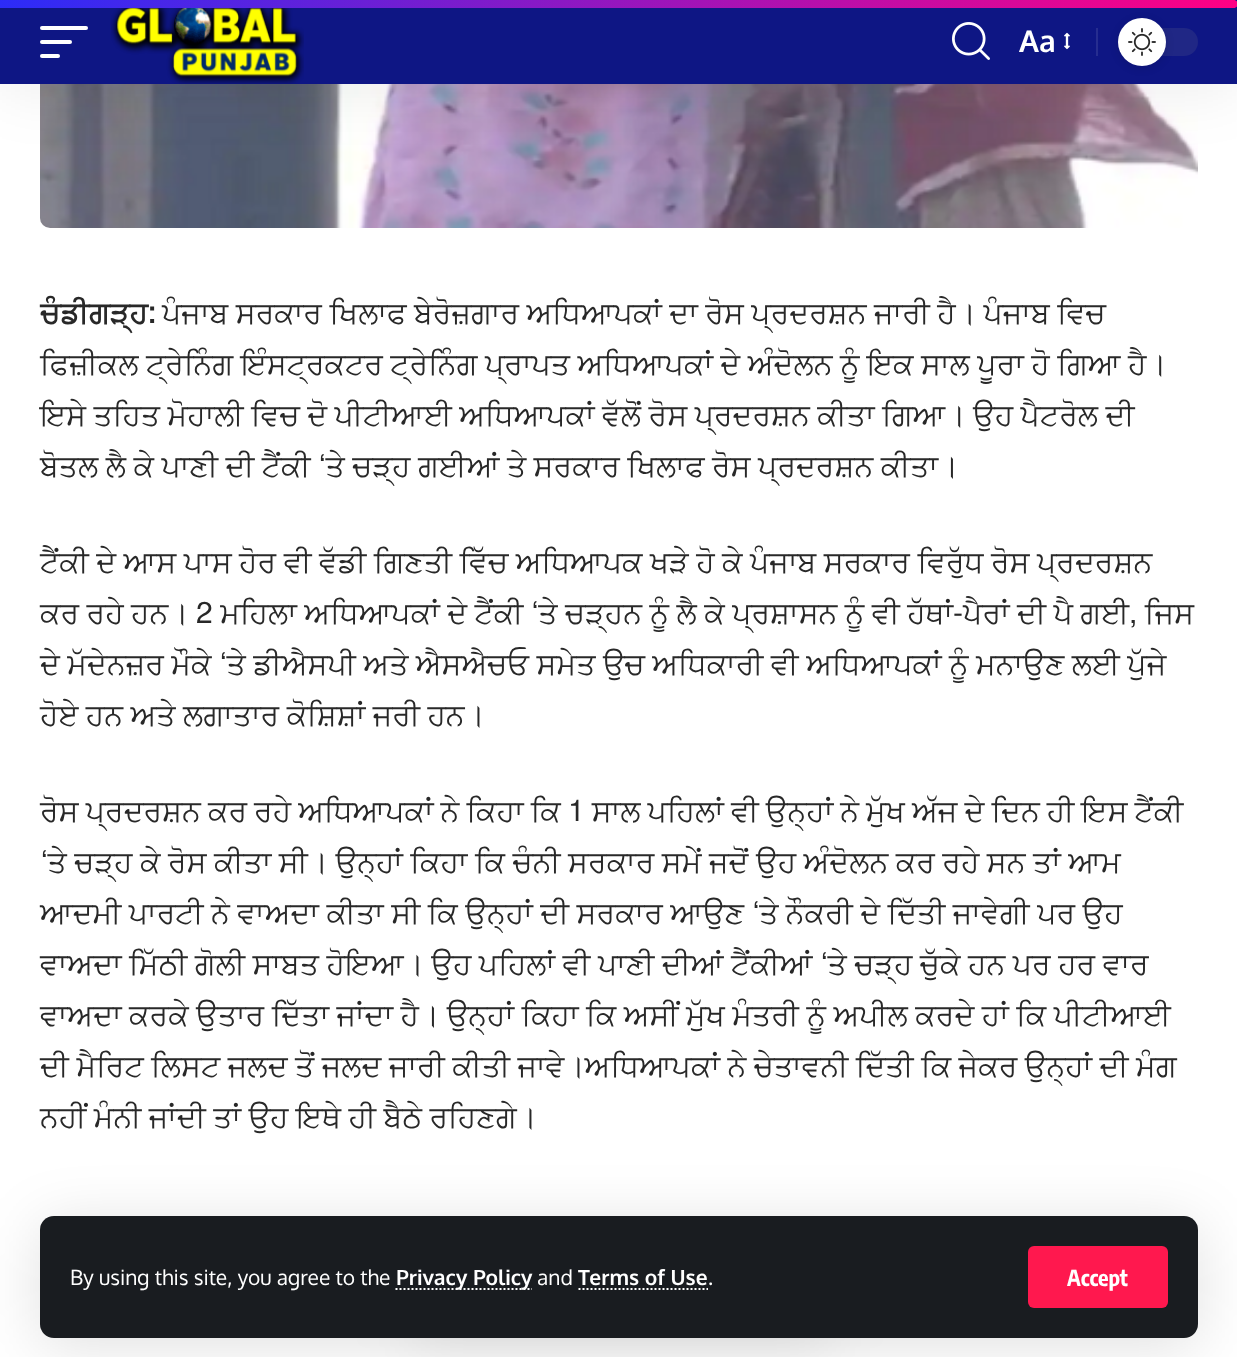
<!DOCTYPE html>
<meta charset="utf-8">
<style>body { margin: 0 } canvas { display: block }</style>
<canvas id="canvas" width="1237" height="1357"></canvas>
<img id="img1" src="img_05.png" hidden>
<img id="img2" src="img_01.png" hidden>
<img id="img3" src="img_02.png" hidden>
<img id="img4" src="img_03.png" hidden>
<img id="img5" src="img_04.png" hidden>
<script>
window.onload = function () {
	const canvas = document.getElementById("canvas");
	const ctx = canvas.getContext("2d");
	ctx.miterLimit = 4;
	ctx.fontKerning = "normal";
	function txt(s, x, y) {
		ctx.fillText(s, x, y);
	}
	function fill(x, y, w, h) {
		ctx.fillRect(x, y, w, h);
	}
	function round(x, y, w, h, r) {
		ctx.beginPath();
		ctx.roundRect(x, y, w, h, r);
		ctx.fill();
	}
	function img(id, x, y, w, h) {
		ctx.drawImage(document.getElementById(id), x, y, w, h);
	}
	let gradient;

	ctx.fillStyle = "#FFFFFF";
	fill(0, 0, 1237, 1357);
	img("img1", 40, 84, 1158, 144);
	ctx.fillStyle = "rgba(0, 0, 0, 0.07)";
	ctx.filter = "blur(30px)";
	ctx.beginPath();
	ctx.rect(0, 8, 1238, 84);
	ctx.fill();
	ctx.filter = "none";
	ctx.fillStyle = "#0E1684";
	fill(0, 0, 1237, 84);
	ctx.fillStyle = "#202785";
	round(1118, 28, 80, 28, 14);
	ctx.fillStyle = "rgba(0, 0, 0, 0.12)";
	ctx.filter = "blur(4px)";
	ctx.beginPath();
	ctx.roundRect(1118, 20, 48, 48, 24);
	ctx.fill();
	ctx.filter = "none";
	gradient = ctx.createLinearGradient(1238, 4, 0, 4);
	gradient.addColorStop(0, "#FF0084");
	gradient.addColorStop(1, "#2C2CF8");
	ctx.fillStyle = gradient;
	ctx.beginPath();
	ctx.moveTo(0, 0);
	ctx.lineTo(1234, 0);
	ctx.bezierCurveTo(1236, 0, 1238, 2, 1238, 4);
	ctx.bezierCurveTo(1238, 6, 1236, 8, 1234, 8);
	ctx.lineTo(0, 8);
	ctx.closePath();
	ctx.fill();
	ctx.fillStyle = "#FFFFFF";
	round(40, 26, 48, 4, 2);
	round(40, 40, 32, 4, 2);
	round(40, 54, 20, 4, 2);
	img("img2", 111, 8, 193, 76);
	img("img3", 952, 22, 38, 38);
	img("img4", 1064, 32, 6, 18);
	ctx.fillStyle = "#262D90";
	fill(1096, 28, 2, 28);
	ctx.fillStyle = "#FFFFFF";
	ctx.beginPath();
	ctx.arc(1142, 42, 24, 0, Math.PI * 2);
	ctx.fill();
	img("img5", 1128, 28, 28, 28);
	ctx.fillStyle = "rgba(0, 0, 0, 0.12)";
	ctx.filter = "blur(30px)";
	ctx.beginPath();
	ctx.roundRect(40, 1224, 1158, 122, 14);
	ctx.fill();
	ctx.filter = "none";
	ctx.fillStyle = "rgba(0, 0, 0, 0.07)";
	ctx.filter = "blur(30px)";
	ctx.beginPath();
	ctx.roundRect(410, 1264, 420, 84, 10);
	ctx.fill();
	ctx.filter = "none";
	ctx.fillStyle = "#191C20";
	round(40, 1216, 1158, 122, 14);
	ctx.beginPath();
	ctx.moveTo(395.5, 1289);
	ctx.lineTo(532, 1289);
	ctx.strokeStyle = "#FFFFFF";
	ctx.lineWidth = 2;
	ctx.setLineDash([2, 2]);
	ctx.stroke();
	ctx.beginPath();
	ctx.moveTo(578.5, 1289);
	ctx.lineTo(708, 1289);
	ctx.stroke();
	ctx.fillStyle = "#FF184E";
	round(1028, 1246, 140, 62, 6);
	ctx.font = "bold 30px Oxygen";
	ctx.fillStyle = "#FFFFFF";
	txt("Aa", 1019, 52);
	ctx.font = "21px Oxygen";
	txt("By using this site, you agree to the", 70, 1285);
	ctx.font = "bold 21px Oxygen";
	txt("Privacy Policy", 396, 1285);
	ctx.font = "21px Oxygen";
	txt("and", 537, 1285);
	ctx.font = "bold 21px Oxygen";
	txt("Terms of Use", 578, 1285);
	ctx.font = "21px Oxygen";
	txt(".", 708, 1285);
	ctx.font = "bold 22px Encode Sans Condensed";
	txt("Accept", 1067, 1286);
	ctx.font = "bold 30px FreeSans";
	ctx.fillStyle = "#282828";
	txt("ਚੰਡੀਗੜ੍ਹ:", 40, 323);
	ctx.font = "30px FreeSans";
	txt("ਪੰਜਾਬ ਸਰਕਾਰ ਖਿਲਾਫ ਬੇਰੋਜ਼ਗਾਰ ਅਧਿਆਪਕਾਂ ਦਾ ਰੋਸ ਪ੍ਰਦਰਸ਼ਨ ਜਾਰੀ ਹੈ। ਪੰਜਾਬ ਵਿਚ", 162, 323);
	txt("ਫਿਜ਼ੀਕਲ ਟ੍ਰੇਨਿੰਗ ਇੰਸਟ੍ਰਕਟਰ ਟ੍ਰੇਨਿੰਗ ਪ੍ਰਾਪਤ ਅਧਿਆਪਕਾਂ ਦੇ ਅੰਦੋਲਨ ਨੂੰ ਇਕ ਸਾਲ ਪੂਰਾ ਹੋ ਗਿਆ ਹੈ।", 40, 374);
	txt("ਇਸੇ ਤਹਿਤ ਮੋਹਾਲੀ ਵਿਚ ਦੋ ਪੀਟੀਆਈ ਅਧਿਆਪਕਾਂ ਵੱਲੋਂ ਰੋਸ ਪ੍ਰਦਰਸ਼ਨ ਕੀਤਾ ਗਿਆ। ਉਹ ਪੈਟਰੋਲ ਦੀ", 40, 425);
	txt("ਬੋਤਲ ਲੈ ਕੇ ਪਾਣੀ ਦੀ ਟੈਂਕੀ ‘ਤੇ ਚੜ੍ਹ ਗਈਆਂ ਤੇ ਸਰਕਾਰ ਖਿਲਾਫ ਰੋਸ ਪ੍ਰਦਰਸ਼ਨ ਕੀਤਾ।", 40, 476);
	txt("ਟੈਂਕੀ ਦੇ ਆਸ ਪਾਸ ਹੋਰ ਵੀ ਵੱਡੀ ਗਿਣਤੀ ਵਿੱਚ ਅਧਿਆਪਕ ਖੜੇ ਹੋ ਕੇ ਪੰਜਾਬ ਸਰਕਾਰ ਵਿਰੁੱਧ ਰੋਸ ਪ੍ਰਦਰਸ਼ਨ", 40, 572);
	txt("ਕਰ ਰਹੇ ਹਨ। 2 ਮਹਿਲਾ ਅਧਿਆਪਕਾਂ ਦੇ ਟੈਂਕੀ ‘ਤੇ ਚੜ੍ਹਨ ਨੂੰ ਲੈ ਕੇ ਪ੍ਰਸ਼ਾਸਨ ਨੂੰ ਵੀ ਹੱਥਾਂ-ਪੈਰਾਂ ਦੀ ਪੈ ਗਈ, ਜਿਸ", 40, 623);
	txt("ਦੇ ਮੱਦੇਨਜ਼ਰ ਮੌਕੇ ‘ਤੇ ਡੀਐਸਪੀ ਅਤੇ ਐਸਐਚਓ ਸਮੇਤ ਉਚ ਅਧਿਕਾਰੀ ਵੀ ਅਧਿਆਪਕਾਂ ਨੂੰ ਮਨਾਉਣ ਲਈ ਪੁੱਜੇ", 40, 674);
	txt("ਹੋਏ ਹਨ ਅਤੇ ਲਗਾਤਾਰ ਕੋਸ਼ਿਸ਼ਾਂ ਜਰੀ ਹਨ।", 40, 725);
	ctx.wordSpacing = "-0.4px";
	txt("ਰੋਸ ਪ੍ਰਦਰਸ਼ਨ ਕਰ ਰਹੇ ਅਧਿਆਪਕਾਂ ਨੇ ਕਿਹਾ ਕਿ 1 ਸਾਲ ਪਹਿਲਾਂ ਵੀ ਉਨ੍ਹਾਂ ਨੇ ਮੁੱਖ ਅੱਜ ਦੇ ਦਿਨ ਹੀ ਇਸ ਟੈਂਕੀ", 40, 821);
	ctx.wordSpacing = "0px";
	txt("‘ਤੇ ਚੜ੍ਹ ਕੇ ਰੋਸ ਕੀਤਾ ਸੀ। ਉਨ੍ਹਾਂ ਕਿਹਾ ਕਿ ਚੰਨੀ ਸਰਕਾਰ ਸਮੇਂ ਜਦੋਂ ਉਹ ਅੰਦੋਲਨ ਕਰ ਰਹੇ ਸਨ ਤਾਂ ਆਮ", 40, 872);
	txt("ਆਦਮੀ ਪਾਰਟੀ ਨੇ ਵਾਅਦਾ ਕੀਤਾ ਸੀ ਕਿ ਉਨ੍ਹਾਂ ਦੀ ਸਰਕਾਰ ਆਉਣ ‘ਤੇ ਨੌਕਰੀ ਦੇ ਦਿੱਤੀ ਜਾਵੇਗੀ ਪਰ ਉਹ", 40, 923);
	txt("ਵਾਅਦਾ ਮਿੱਠੀ ਗੋਲੀ ਸਾਬਤ ਹੋਇਆ। ਉਹ ਪਹਿਲਾਂ ਵੀ ਪਾਣੀ ਦੀਆਂ ਟੈਂਕੀਆਂ ‘ਤੇ ਚੜ੍ਹ ਚੁੱਕੇ ਹਨ ਪਰ ਹਰ ਵਾਰ", 40, 974);
	txt("ਵਾਅਦਾ ਕਰਕੇ ਉਤਾਰ ਦਿੱਤਾ ਜਾਂਦਾ ਹੈ। ਉਨ੍ਹਾਂ ਕਿਹਾ ਕਿ ਅਸੀਂ ਮੁੱਖ ਮੰਤਰੀ ਨੂੰ ਅਪੀਲ ਕਰਦੇ ਹਾਂ ਕਿ ਪੀਟੀਆਈ", 40, 1025);
	txt("ਦੀ ਮੈਰਿਟ ਲਿਸਟ ਜਲਦ ਤੋਂ ਜਲਦ ਜਾਰੀ ਕੀਤੀ ਜਾਵੇ।ਅਧਿਆਪਕਾਂ ਨੇ ਚੇਤਾਵਨੀ ਦਿੱਤੀ ਕਿ ਜੇਕਰ ਉਨ੍ਹਾਂ ਦੀ ਮੰਗ", 40, 1076);
	txt("ਨਹੀਂ ਮੰਨੀ ਜਾਂਦੀ ਤਾਂ ਉਹ ਇਥੇ ਹੀ ਬੈਠੇ ਰਹਿਣਗੇ।", 40, 1127);
};
</script>
